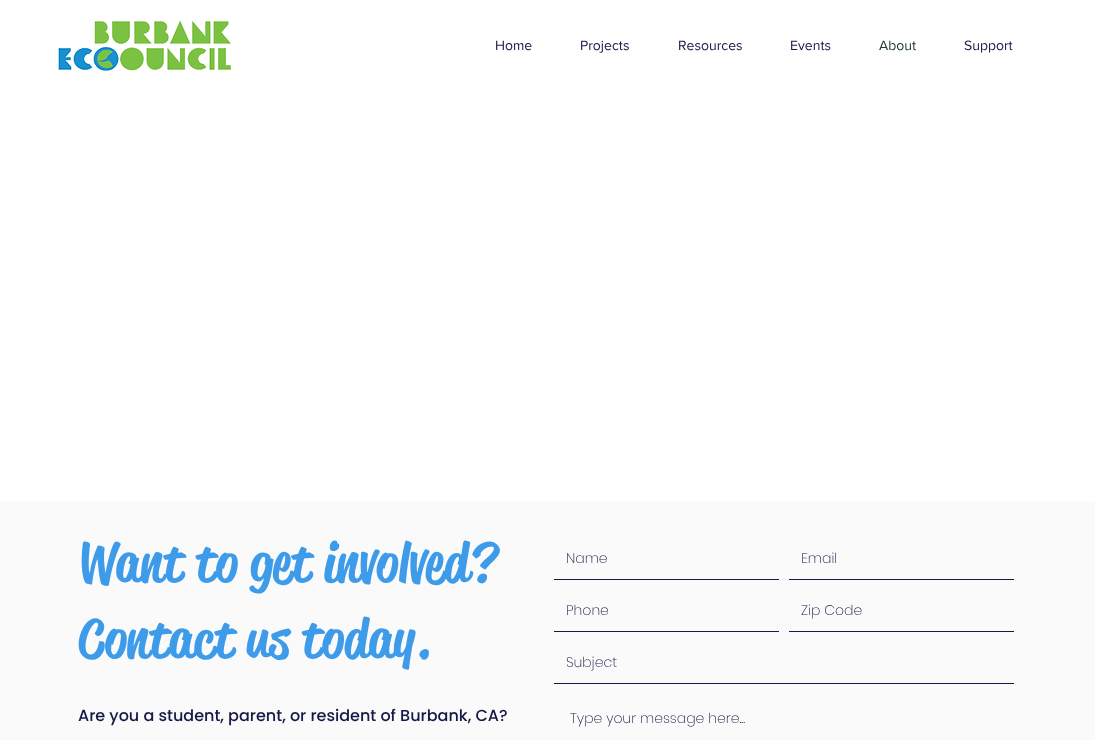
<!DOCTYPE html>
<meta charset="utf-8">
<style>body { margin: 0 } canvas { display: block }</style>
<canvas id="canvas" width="1095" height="740"></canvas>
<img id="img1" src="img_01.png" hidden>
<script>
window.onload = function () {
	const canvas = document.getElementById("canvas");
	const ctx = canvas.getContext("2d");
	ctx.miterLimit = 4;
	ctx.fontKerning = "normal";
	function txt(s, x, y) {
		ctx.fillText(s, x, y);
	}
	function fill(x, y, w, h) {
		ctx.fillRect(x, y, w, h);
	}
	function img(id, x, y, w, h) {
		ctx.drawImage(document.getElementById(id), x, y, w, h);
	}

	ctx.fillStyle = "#FFFFFF";
	fill(0, 0, 1095, 740);
	img("img1", 58, 21, 173, 50);
	ctx.fillStyle = "#FAFAFA";
	fill(0, 502, 1095, 238);
	ctx.fillStyle = "#161845";
	fill(554, 579, 225, 1);
	fill(789, 579, 225, 1);
	fill(554, 631, 225, 1);
	fill(789, 631, 225, 1);
	fill(554, 683, 460, 1);
	ctx.font = "14px 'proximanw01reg'";
	txt("Home", 495, 50);
	txt("Projects", 580, 50);
	txt("Resources", 678, 50);
	txt("Events", 790, 50);
	ctx.fillStyle = "#203F30";
	txt("About", 879, 50);
	ctx.fillStyle = "#161845";
	txt("Support", 964, 50);
	ctx.font = "500 54px 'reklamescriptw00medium'";
	ctx.fillStyle = "#3D9BE9";
	txt("Want to get involved?", 78, 581);
	txt("Contact us today.", 78, 657);
	ctx.font = "200 14px Poppins";
	ctx.fillStyle = "#161845";
	txt("Name", 566, 563);
	txt("Email", 801, 563);
	txt("Phone", 566, 615);
	txt("Zip Code", 801, 615);
	txt("Subject", 566, 667);
	txt("Type your message here...", 570, 723);
	ctx.font = "500 16px Poppins";
	txt("Are you a student, parent, or resident of Burbank, CA?", 78, 721);
};
</script>
